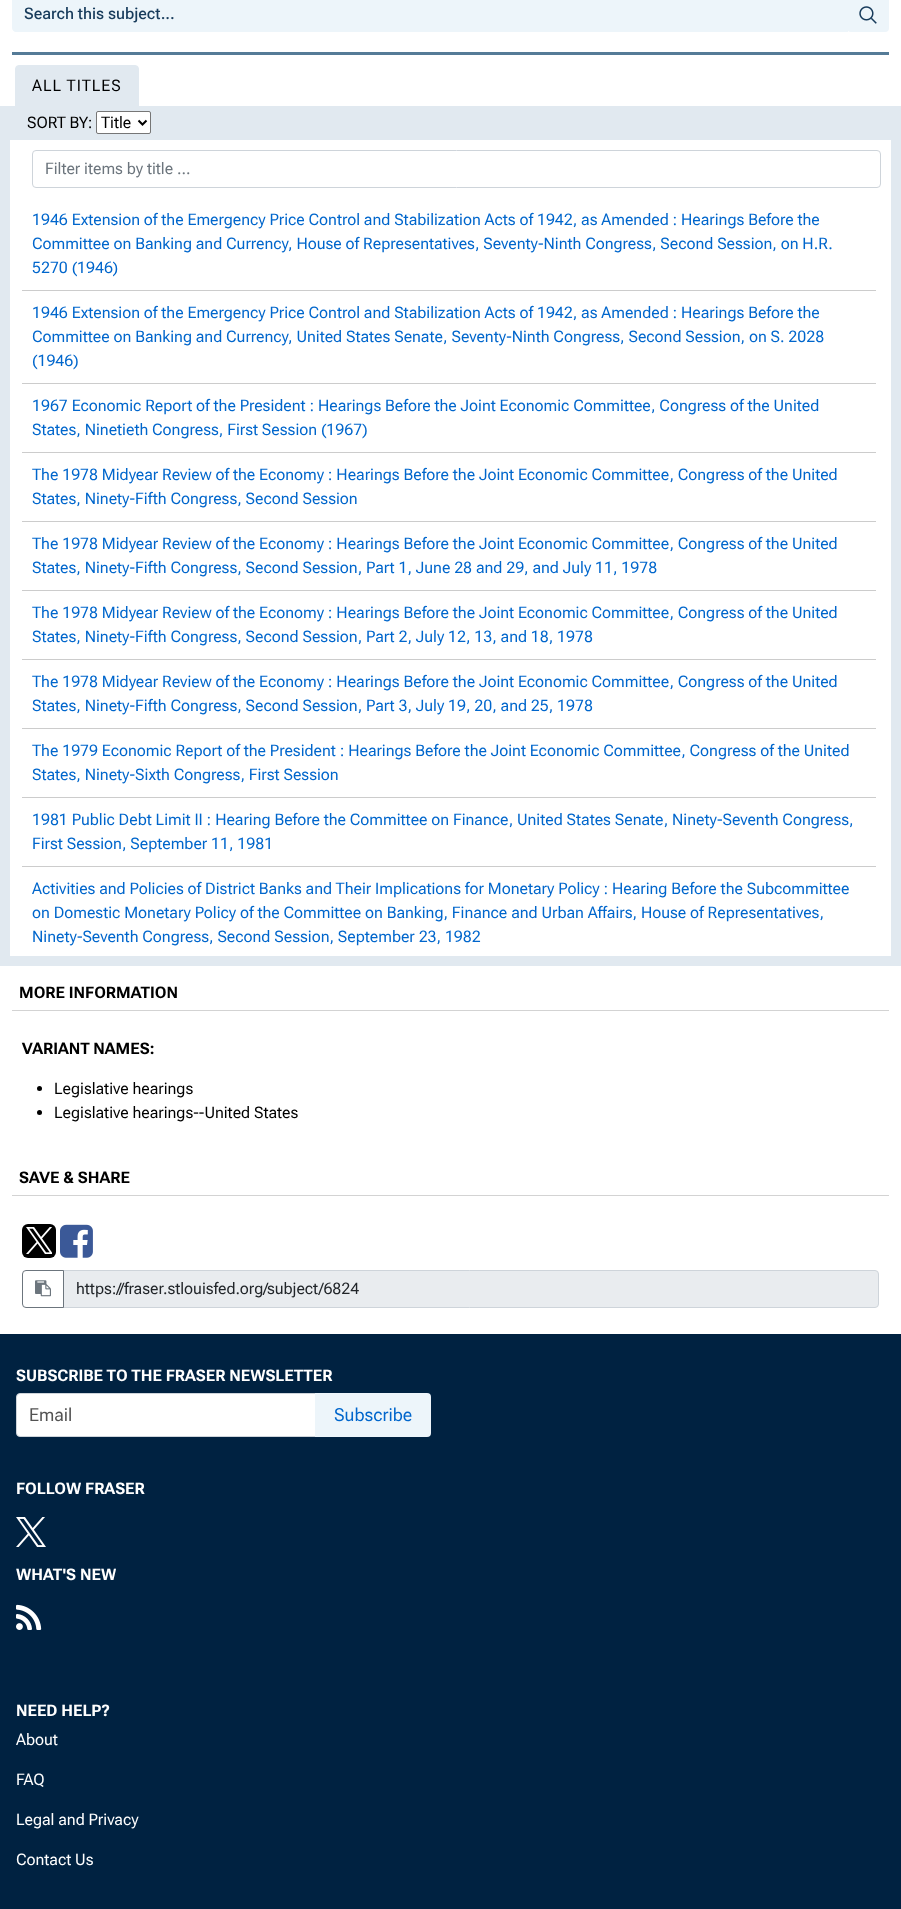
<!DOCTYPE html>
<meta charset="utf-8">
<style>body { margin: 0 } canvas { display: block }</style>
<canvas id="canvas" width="901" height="1909"></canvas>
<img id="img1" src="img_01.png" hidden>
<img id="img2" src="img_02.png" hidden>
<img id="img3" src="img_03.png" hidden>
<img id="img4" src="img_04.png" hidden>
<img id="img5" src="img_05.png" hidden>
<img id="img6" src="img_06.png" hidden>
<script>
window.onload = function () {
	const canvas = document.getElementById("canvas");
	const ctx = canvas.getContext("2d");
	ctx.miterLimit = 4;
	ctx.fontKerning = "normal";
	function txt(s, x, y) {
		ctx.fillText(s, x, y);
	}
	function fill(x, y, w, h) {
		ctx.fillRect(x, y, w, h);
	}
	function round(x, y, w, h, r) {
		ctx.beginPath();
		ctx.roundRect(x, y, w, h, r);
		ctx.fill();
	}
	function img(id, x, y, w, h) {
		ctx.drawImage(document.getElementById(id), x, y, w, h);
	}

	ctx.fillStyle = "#FFFFFF";
	fill(0, 0, 901, 1909);
	ctx.fillStyle = "#557B97";
	fill(12, 52, 877, 3);
	ctx.fillStyle = "#EDF5FA";
	ctx.beginPath();
	ctx.moveTo(16, -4);
	ctx.lineTo(848, -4);
	ctx.lineTo(848, 32);
	ctx.lineTo(16, 32);
	ctx.bezierCurveTo(14, 32, 12, 30, 12, 28);
	ctx.lineTo(12, 0);
	ctx.bezierCurveTo(12, -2, 14, -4, 16, -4);
	ctx.closePath();
	ctx.fill();
	round(847, -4, 42, 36, 4);
	img("img1", 859, 6, 18, 18);
	ctx.fillStyle = "#E1E9F0";
	fill(0, 106, 901, 10);
	ctx.beginPath();
	ctx.roundRect(15.5, 65.5, 123, 41, [3.5, 3.5, 0, 0]);
	ctx.fill();
	ctx.strokeStyle = "#E1E9F0";
	ctx.stroke();
	fill(891, 116, 10, 840);
	fill(10, 956, 891, 10);
	fill(0, 116, 10, 850);
	fill(10, 116, 881, 24);
	ctx.fillStyle = "#FFFFFF";
	ctx.beginPath();
	ctx.roundRect(96.5, 111.5, 54, 22, 1.5);
	ctx.fill();
	ctx.strokeStyle = "#767676";
	ctx.stroke();
	ctx.beginPath();
	ctx.moveTo(138.5, 120.5);
	ctx.lineTo(142.5, 124.5);
	ctx.lineTo(146.5, 120.5);
	ctx.strokeStyle = "#000000";
	ctx.lineWidth = 2;
	ctx.stroke();
	ctx.beginPath();
	ctx.roundRect(32.5, 150.5, 848, 37, 3.5);
	ctx.strokeStyle = "#CED4DA";
	ctx.lineWidth = 1;
	ctx.stroke();
	ctx.fillStyle = "#CCCCCC";
	fill(22, 290, 854, 1);
	fill(22, 383, 854, 1);
	fill(22, 452, 854, 1);
	fill(22, 521, 854, 1);
	fill(22, 590, 854, 1);
	fill(22, 659, 854, 1);
	fill(22, 728, 854, 1);
	fill(22, 797, 854, 1);
	fill(22, 866, 854, 1);
	ctx.fillStyle = "#D3D3D3";
	fill(12, 1010, 877, 1);
	ctx.fillStyle = "#000000";
	ctx.beginPath();
	ctx.arc(39.5, 1088.5, 2.5, 0, Math.PI * 2);
	ctx.fill();
	ctx.beginPath();
	ctx.arc(39.5, 1112.5, 2.5, 0, Math.PI * 2);
	ctx.fill();
	ctx.fillStyle = "#D3D3D3";
	fill(12, 1195, 877, 1);
	ctx.fillStyle = "#000000";
	round(22, 1224, 34, 34, 6);
	img("img2", 26, 1227, 26, 27);
	img("img3", 60, 1224, 33, 34);
	ctx.fillStyle = "#E9ECEF";
	ctx.beginPath();
	ctx.roundRect(63.5, 1270.5, 815, 37, [0, 3.5, 3.5, 0]);
	ctx.fill();
	ctx.stroke();
	ctx.beginPath();
	ctx.roundRect(22.5, 1270.5, 41, 37, [3.5, 0, 0, 3.5]);
	ctx.strokeStyle = "#6C757D";
	ctx.stroke();
	img("img4", 35, 1280, 16, 17);
	ctx.fillStyle = "#002241";
	fill(0, 1334, 901, 575);
	ctx.fillStyle = "#FFFFFF";
	ctx.beginPath();
	ctx.roundRect(16.5, 1393.5, 299, 43, [3.5, 0, 0, 3.5]);
	ctx.fill();
	ctx.strokeStyle = "#CED4DA";
	ctx.stroke();
	ctx.fillStyle = "#EDF5FA";
	ctx.beginPath();
	ctx.roundRect(315, 1393, 116, 44, [0, 4, 4, 0]);
	ctx.fill();
	img("img5", 16, 1517, 30, 30);
	img("img6", 16, 1604, 26, 26);
	ctx.font = "500 16px Roboto Flex";
	ctx.fillStyle = "#173B5B";
	txt("Search this subject...", 24, 19);
	ctx.letterSpacing = "1px";
	ctx.font = "16px Roboto Flex";
	ctx.fillStyle = "#000000";
	txt("ALL TITLES", 32, 91);
	ctx.letterSpacing = "0px";
	txt("SORT BY:", 27, 128);
	txt("Title", 101, 128);
	ctx.fillStyle = "#6C757D";
	txt("Filter items by title ...", 45, 174);
	ctx.fillStyle = "#0066CC";
	txt("1946 Extension of the Emergency Price Control and Stabilization Acts of 1942, as Amended : Hearings Before the", 32, 225);
	txt("Committee on Banking and Currency, House of Representatives, Seventy-Ninth Congress, Second Session, on H.R.", 32, 249);
	txt("5270 (1946)", 32, 273);
	txt("1946 Extension of the Emergency Price Control and Stabilization Acts of 1942, as Amended : Hearings Before the", 32, 318);
	txt("Committee on Banking and Currency, United States Senate, Seventy-Ninth Congress, Second Session, on S. 2028", 32, 342);
	txt("(1946)", 32, 366);
	txt("1967 Economic Report of the President : Hearings Before the Joint Economic Committee, Congress of the United", 32, 411);
	txt("States, Ninetieth Congress, First Session (1967)", 32, 435);
	txt("The 1978 Midyear Review of the Economy : Hearings Before the Joint Economic Committee, Congress of the United", 32, 480);
	txt("States, Ninety-Fifth Congress, Second Session", 32, 504);
	txt("The 1978 Midyear Review of the Economy : Hearings Before the Joint Economic Committee, Congress of the United", 32, 549);
	txt("States, Ninety-Fifth Congress, Second Session, Part 1, June 28 and 29, and July 11, 1978", 32, 573);
	txt("The 1978 Midyear Review of the Economy : Hearings Before the Joint Economic Committee, Congress of the United", 32, 618);
	txt("States, Ninety-Fifth Congress, Second Session, Part 2, July 12, 13, and 18, 1978", 32, 642);
	txt("The 1978 Midyear Review of the Economy : Hearings Before the Joint Economic Committee, Congress of the United", 32, 687);
	txt("States, Ninety-Fifth Congress, Second Session, Part 3, July 19, 20, and 25, 1978", 32, 711);
	txt("The 1979 Economic Report of the President : Hearings Before the Joint Economic Committee, Congress of the United", 32, 756);
	txt("States, Ninety-Sixth Congress, First Session", 32, 780);
	txt("1981 Public Debt Limit II : Hearing Before the Committee on Finance, United States Senate, Ninety-Seventh Congress,", 32, 825);
	txt("First Session, September 11, 1981", 32, 849);
	txt("Activities and Policies of District Banks and Their Implications for Monetary Policy : Hearing Before the Subcommittee", 32, 894);
	txt("on Domestic Monetary Policy of the Committee on Banking, Finance and Urban Affairs, House of Representatives,", 32, 918);
	txt("Ninety-Seventh Congress, Second Session, September 23, 1982", 32, 942);
	ctx.font = "bold 16px Roboto Flex";
	ctx.fillStyle = "#000000";
	txt("MORE INFORMATION", 19, 998);
	txt("VARIANT NAMES:", 22, 1054);
	ctx.font = "16px Roboto Flex";
	txt("Legislative hearings", 54, 1094);
	txt("Legislative hearings--United States", 54, 1118);
	ctx.font = "bold 16px Roboto Flex";
	txt("SAVE & SHARE", 19, 1183);
	ctx.font = "16px Roboto Flex";
	ctx.fillStyle = "#212529";
	txt("https://fraser.stlouisfed.org/subject/6824", 76, 1294);
	ctx.font = "bold 16px Roboto Flex";
	ctx.fillStyle = "#FFFFFF";
	txt("SUBSCRIBE TO THE FRASER NEWSLETTER", 16, 1381);
	ctx.font = "18px 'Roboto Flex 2'";
	ctx.fillStyle = "#535353";
	txt("Email", 29, 1421);
	ctx.fillStyle = "#0066CC";
	txt("Subscribe", 334, 1421);
	ctx.font = "bold 16px Roboto Flex";
	ctx.fillStyle = "#FFFFFF";
	txt("FOLLOW FRASER", 16, 1494);
	txt("WHAT'S NEW", 16, 1580);
	txt("NEED HELP?", 16, 1716);
	ctx.font = "16px Roboto Flex";
	txt("About", 16, 1745);
	txt("FAQ", 16, 1785);
	txt("Legal and Privacy", 16, 1825);
	txt("Contact Us", 16, 1865);
};
</script>
